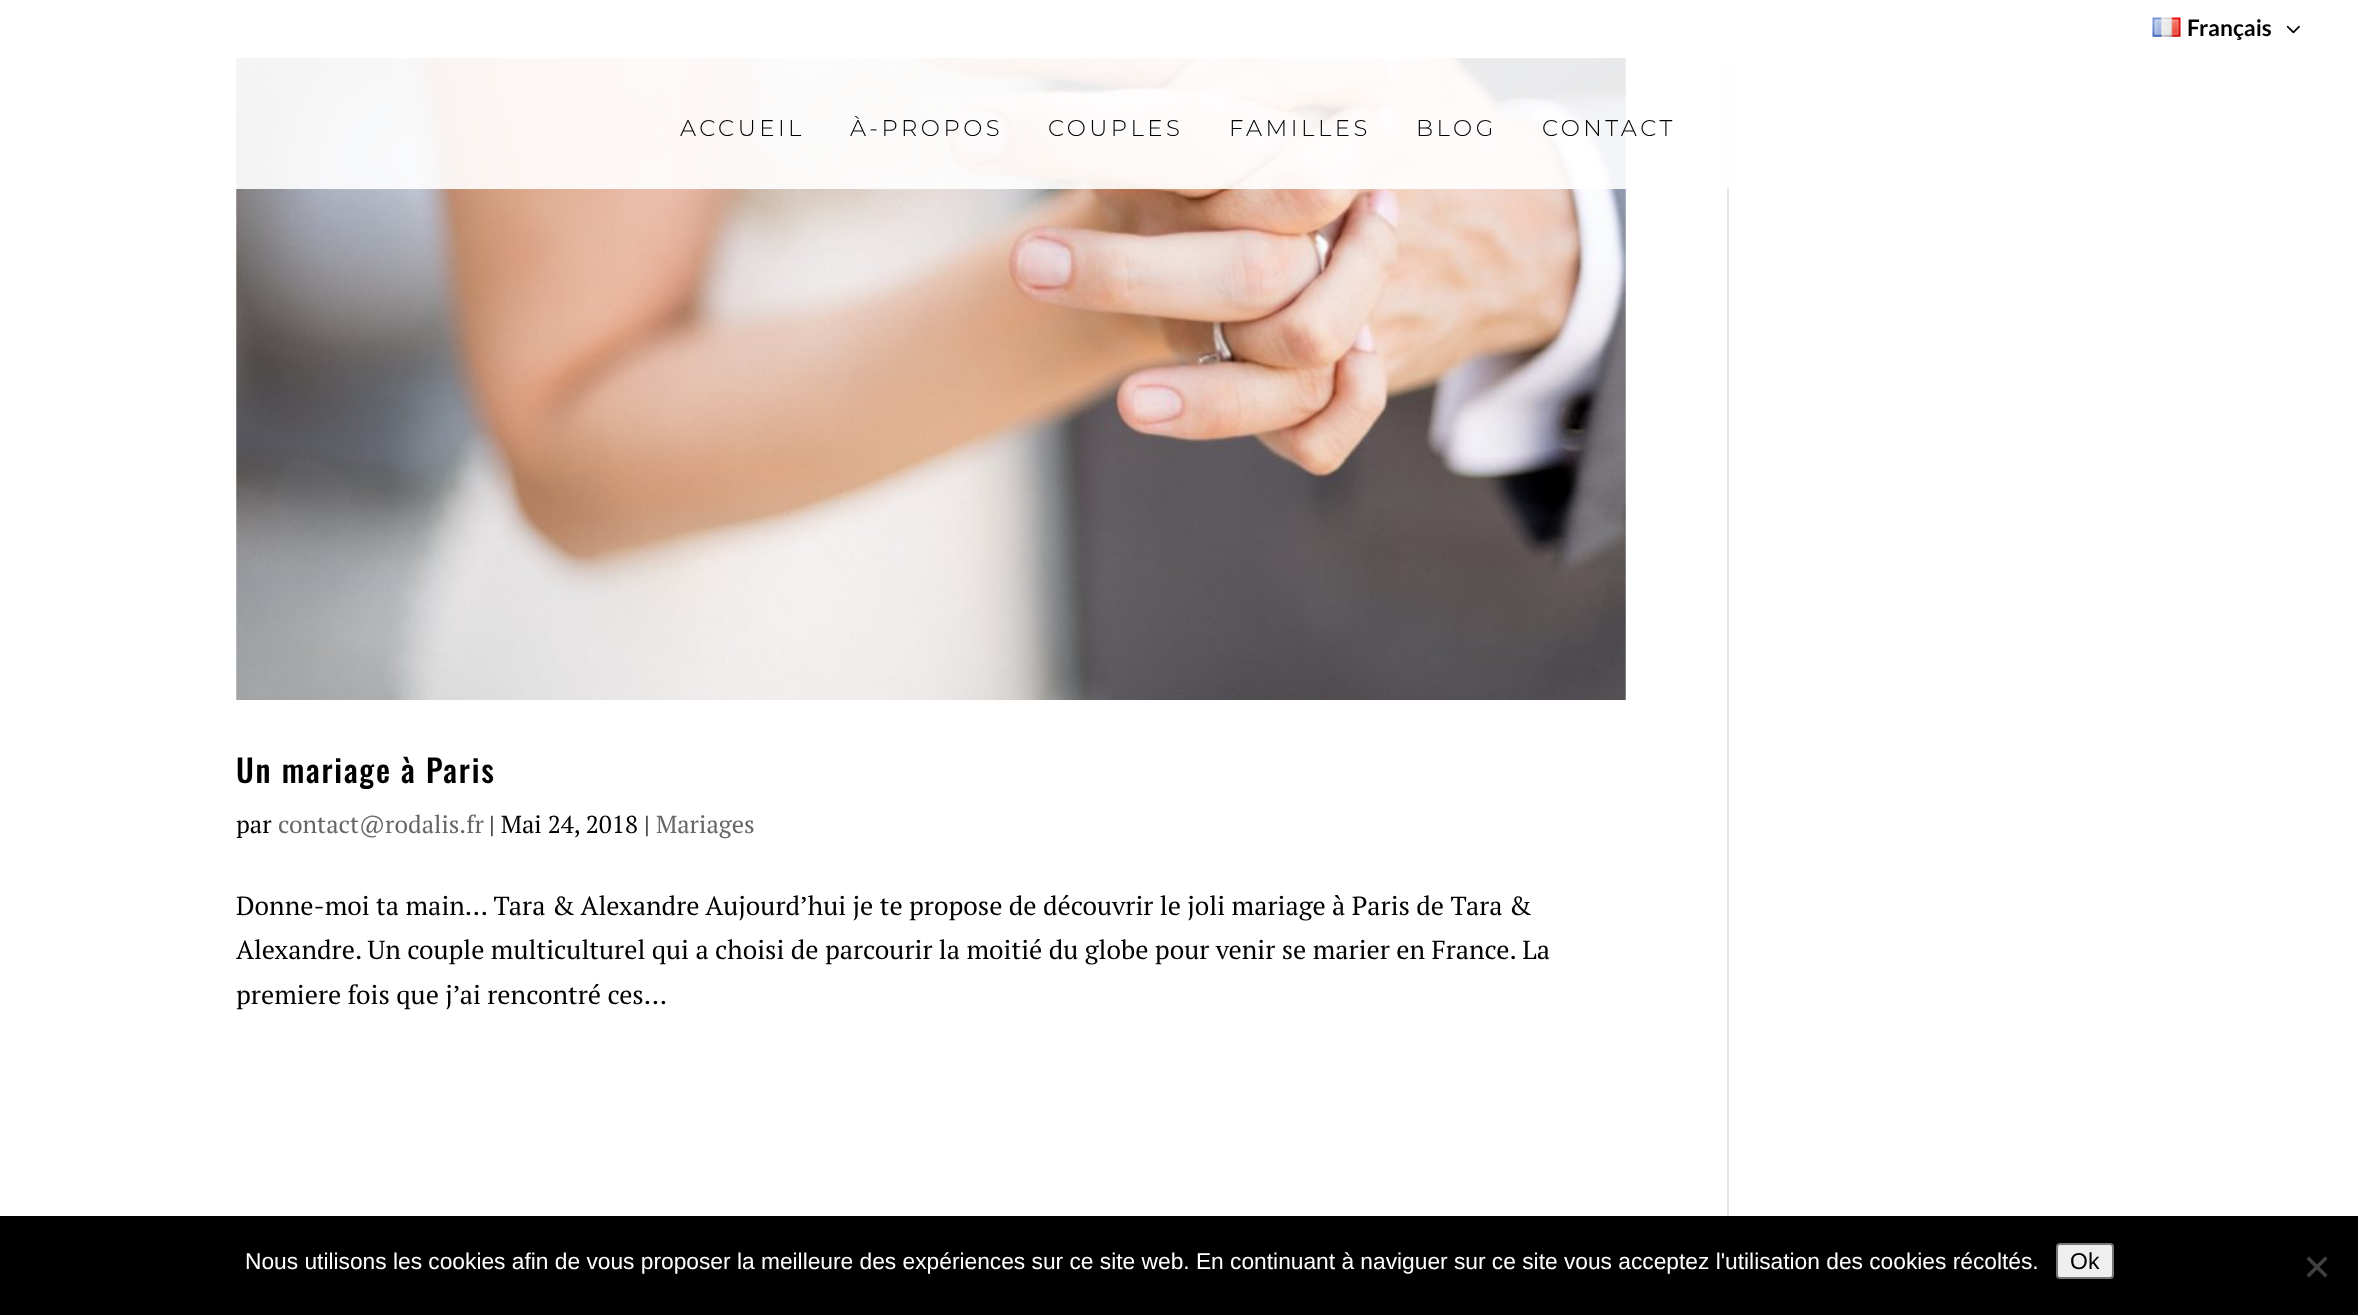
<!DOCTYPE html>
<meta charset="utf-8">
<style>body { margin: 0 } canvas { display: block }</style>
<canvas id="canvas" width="2358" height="1315"></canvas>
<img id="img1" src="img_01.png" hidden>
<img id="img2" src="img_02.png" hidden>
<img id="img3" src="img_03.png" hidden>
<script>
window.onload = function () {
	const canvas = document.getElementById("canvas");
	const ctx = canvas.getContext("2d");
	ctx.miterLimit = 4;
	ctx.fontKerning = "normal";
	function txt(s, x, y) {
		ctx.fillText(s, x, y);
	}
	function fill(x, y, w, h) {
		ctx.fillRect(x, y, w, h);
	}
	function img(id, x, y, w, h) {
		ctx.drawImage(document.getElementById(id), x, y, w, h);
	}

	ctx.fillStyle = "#FFFFFF";
	fill(0, 0, 2358, 1315);
	img("img1", 2152, 17, 29, 20);
	img("img2", 2286, 25, 14, 9);
	img("img3", 236, 58, 1390, 642);
	ctx.fillStyle = "#E2E2E2";
	fill(1727, 58, 2, 1158);
	ctx.fillStyle = "rgba(255, 255, 255, 0.9)";
	fill(236, 58, 1493, 131);
	ctx.fillStyle = "#000000";
	fill(0, 1216, 2358, 99);
	ctx.fillStyle = "#EFEFEF";
	ctx.beginPath();
	ctx.roundRect(2057, 1244, 56, 34, 3);
	ctx.fill();
	ctx.strokeStyle = "#767676";
	ctx.lineWidth = 2;
	ctx.stroke();
	ctx.fillStyle = "#404040";
	ctx.beginPath();
	ctx.moveTo(2325, 1256.5);
	ctx.lineTo(2327.5, 1259);
	ctx.lineTo(2309, 1277.5);
	ctx.lineTo(2306.5, 1275);
	ctx.closePath();
	ctx.fill();
	ctx.beginPath();
	ctx.moveTo(2306.5, 1259);
	ctx.lineTo(2309, 1256.5);
	ctx.lineTo(2327.5, 1275);
	ctx.lineTo(2325, 1277.5);
	ctx.closePath();
	ctx.fill();
	ctx.font = "bold 22.75px Lato";
	ctx.fillStyle = "#000000";
	txt("Français", 2187, 36);
	ctx.letterSpacing = "3.5px";
	ctx.font = "100 22.75px Montserrat";
	txt("ACCUEIL", 680, 136);
	txt("À-PROPOS", 850, 136);
	txt("COUPLES", 1048, 136);
	txt("FAMILLES", 1229, 136);
	txt("BLOG", 1416, 136);
	txt("CONTACT", 1542, 136);
	ctx.letterSpacing = "1.75px";
	ctx.font = "500 31.5px Oswald";
	txt("Un mariage à Paris", 236, 783);
	ctx.letterSpacing = "0px";
	ctx.font = "24.5px PT Serif";
	txt("par", 236, 833);
	ctx.fillStyle = "#666666";
	txt("contact@rodalis.fr", 278, 833);
	ctx.fillStyle = "#000000";
	txt("| Mai 24, 2018 |", 489, 833);
	ctx.fillStyle = "#666666";
	txt("Mariages", 656, 833);
	ctx.font = "26.25px PT Serif";
	ctx.fillStyle = "#000000";
	txt("Donne-moi ta main… Tara & Alexandre Aujourd’hui je te propose de découvrir le joli mariage à Paris de Tara &", 236, 915);
	txt("Alexandre. Un couple multiculturel qui a choisi de parcourir la moitié du globe pour venir se marier en France. La", 236, 959);
	txt("premiere fois que j’ai rencontré ces...", 236, 1004);
	ctx.font = "22.75px Liberation Sans";
	ctx.fillStyle = "#FFFFFF";
	txt("Nous utilisons les cookies afin de vous proposer la meilleure des expériences sur ce site web. En continuant à naviguer sur ce site vous acceptez l'utilisation des cookies récoltés.", 245, 1269);
	ctx.font = "23px Liberation Sans";
	ctx.fillStyle = "#000000";
	txt("Ok", 2070, 1269);
};
</script>
